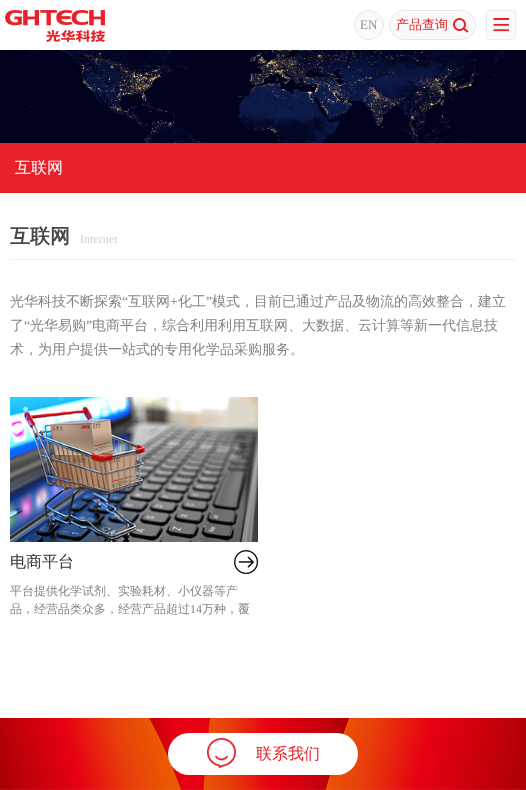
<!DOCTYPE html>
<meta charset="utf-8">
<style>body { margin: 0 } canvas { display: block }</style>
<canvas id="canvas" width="526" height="790"></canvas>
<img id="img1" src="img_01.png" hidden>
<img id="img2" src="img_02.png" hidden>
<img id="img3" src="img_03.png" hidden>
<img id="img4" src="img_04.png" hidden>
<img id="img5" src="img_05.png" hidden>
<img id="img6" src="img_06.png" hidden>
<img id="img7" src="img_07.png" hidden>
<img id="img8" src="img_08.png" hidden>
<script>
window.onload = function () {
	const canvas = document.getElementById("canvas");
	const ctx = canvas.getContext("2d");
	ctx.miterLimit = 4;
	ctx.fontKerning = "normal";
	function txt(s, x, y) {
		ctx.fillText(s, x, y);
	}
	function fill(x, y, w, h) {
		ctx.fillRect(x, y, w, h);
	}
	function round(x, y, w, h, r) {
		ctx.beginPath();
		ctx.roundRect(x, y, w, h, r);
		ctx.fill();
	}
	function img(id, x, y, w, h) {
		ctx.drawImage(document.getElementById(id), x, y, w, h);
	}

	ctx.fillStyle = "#FFFFFF";
	fill(0, 0, 526, 790);
	img("img1", 5, 10, 100, 32);
	ctx.fillStyle = "#FAFAFA";
	ctx.beginPath();
	ctx.arc(369, 25, 14.5, 0, Math.PI * 2);
	ctx.fill();
	ctx.strokeStyle = "#E8E8E8";
	ctx.stroke();
	ctx.beginPath();
	ctx.roundRect(389.5, 10.5, 86, 29, 14.5);
	ctx.fill();
	ctx.stroke();
	img("img2", 453, 18, 16, 15);
	img("img3", 486, 10, 30, 30);
	img("img4", 0, 50, 526, 93);
	ctx.fillStyle = "#E62129";
	fill(0, 143, 526, 50);
	ctx.fillStyle = "#F2F2F2";
	fill(10, 259, 506, 1);
	img("img5", 10, 397, 248, 145);
	img("img6", 234, 550, 24, 24);
	img("img7", 0, 718, 526, 72);
	ctx.fillStyle = "#FFFFFF";
	round(168, 733, 190, 42, 21);
	img("img8", 207, 738, 29, 30);
	ctx.font = "13px Liberation Serif";
	ctx.fillStyle = "#949494";
	txt("EN", 360, 29);
	ctx.font = "500 13px WenQuanYi Zen Hei";
	ctx.fillStyle = "#E62129";
	txt("产品查询", 396, 29);
	ctx.font = "500 16px WenQuanYi Zen Hei";
	ctx.fillStyle = "#FFFFFF";
	txt("互联网", 15, 173);
	ctx.font = "bold 20px WenQuanYi Zen Hei";
	ctx.fillStyle = "#484848";
	txt("互联网", 10, 243);
	ctx.font = "12px Liberation Serif";
	ctx.fillStyle = "#D0D0D0";
	txt("Internet", 80, 243);
	ctx.font = "500 14px WenQuanYi Zen Hei";
	ctx.fillStyle = "#838383";
	txt("光华科技不断探索", 10, 306);
	ctx.font = "14px Liberation Serif";
	txt("“", 122, 306);
	ctx.font = "500 14px WenQuanYi Zen Hei";
	txt("互联网", 128, 306);
	ctx.font = "14px Liberation Serif";
	txt("+", 170, 306);
	ctx.font = "500 14px WenQuanYi Zen Hei";
	txt("化工", 178, 306);
	ctx.font = "14px Liberation Serif";
	txt("”", 206, 306);
	ctx.font = "500 14px WenQuanYi Zen Hei";
	txt("模式，目前已通过产品及物流的高效整合，建立", 212, 306);
	txt("了", 10, 330);
	ctx.font = "14px Liberation Serif";
	txt("“", 24, 330);
	ctx.font = "500 14px WenQuanYi Zen Hei";
	txt("光华易购", 30, 330);
	ctx.font = "14px Liberation Serif";
	txt("”", 86, 330);
	ctx.font = "500 14px WenQuanYi Zen Hei";
	txt("电商平台，综合利用利用互联网、大数据、云计算等新一代信息技", 92, 330);
	txt("术，为用户提供一站式的专用化学品采购服务。", 10, 354);
	ctx.font = "500 16px WenQuanYi Zen Hei";
	ctx.fillStyle = "#333333";
	txt("电商平台", 10, 567);
	ctx.font = "500 12px WenQuanYi Zen Hei";
	ctx.fillStyle = "#838383";
	txt("平台提供化学试剂、实验耗材、小仪器等产", 10, 595);
	txt("品，经营品类众多，经营产品超过", 10, 613);
	ctx.font = "12px Liberation Serif";
	txt("14", 190, 613);
	ctx.font = "500 12px WenQuanYi Zen Hei";
	txt("万种，覆", 202, 613);
	ctx.font = "500 16px WenQuanYi Zen Hei";
	ctx.fillStyle = "#E62129";
	txt("联系我们", 256, 759);
};
</script>
